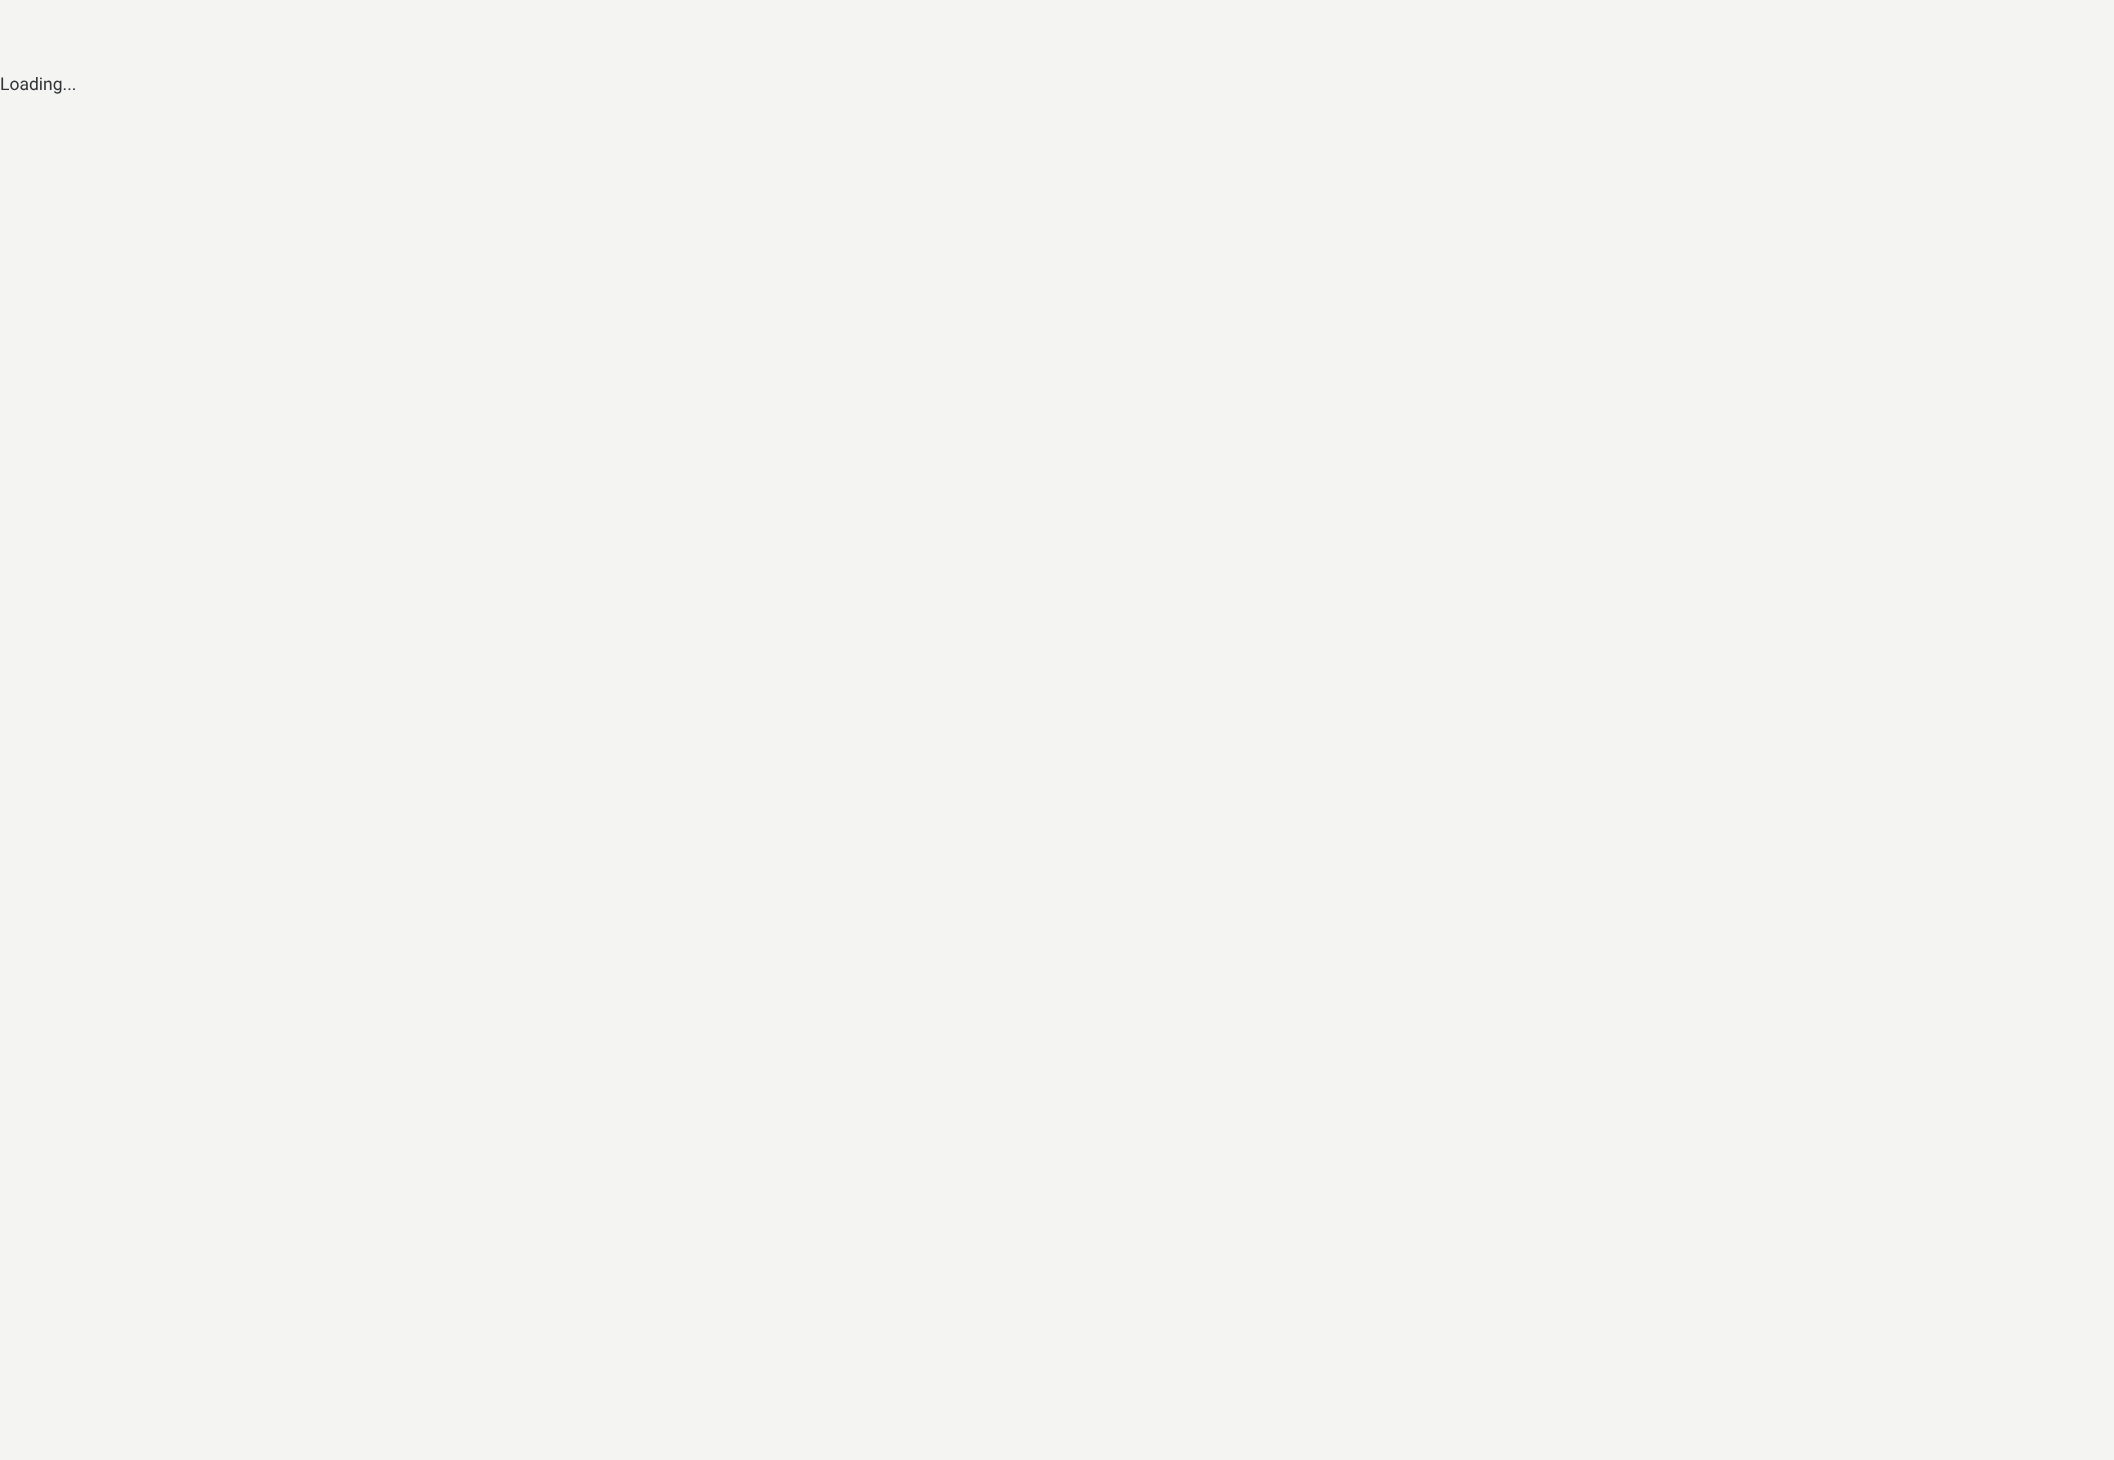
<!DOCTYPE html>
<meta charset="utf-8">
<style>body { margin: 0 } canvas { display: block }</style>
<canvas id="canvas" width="2114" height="1460"></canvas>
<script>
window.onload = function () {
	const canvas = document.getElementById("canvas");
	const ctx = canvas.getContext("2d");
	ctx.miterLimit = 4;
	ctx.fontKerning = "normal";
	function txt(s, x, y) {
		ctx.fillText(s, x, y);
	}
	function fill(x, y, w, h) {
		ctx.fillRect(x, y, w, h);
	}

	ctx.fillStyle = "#F4F4F2";
	fill(0, 0, 2114, 1460);
	ctx.font = "17.5px Roboto";
	ctx.fillStyle = "#303436";
	txt("Loading...", 0, 90);
};
</script>
